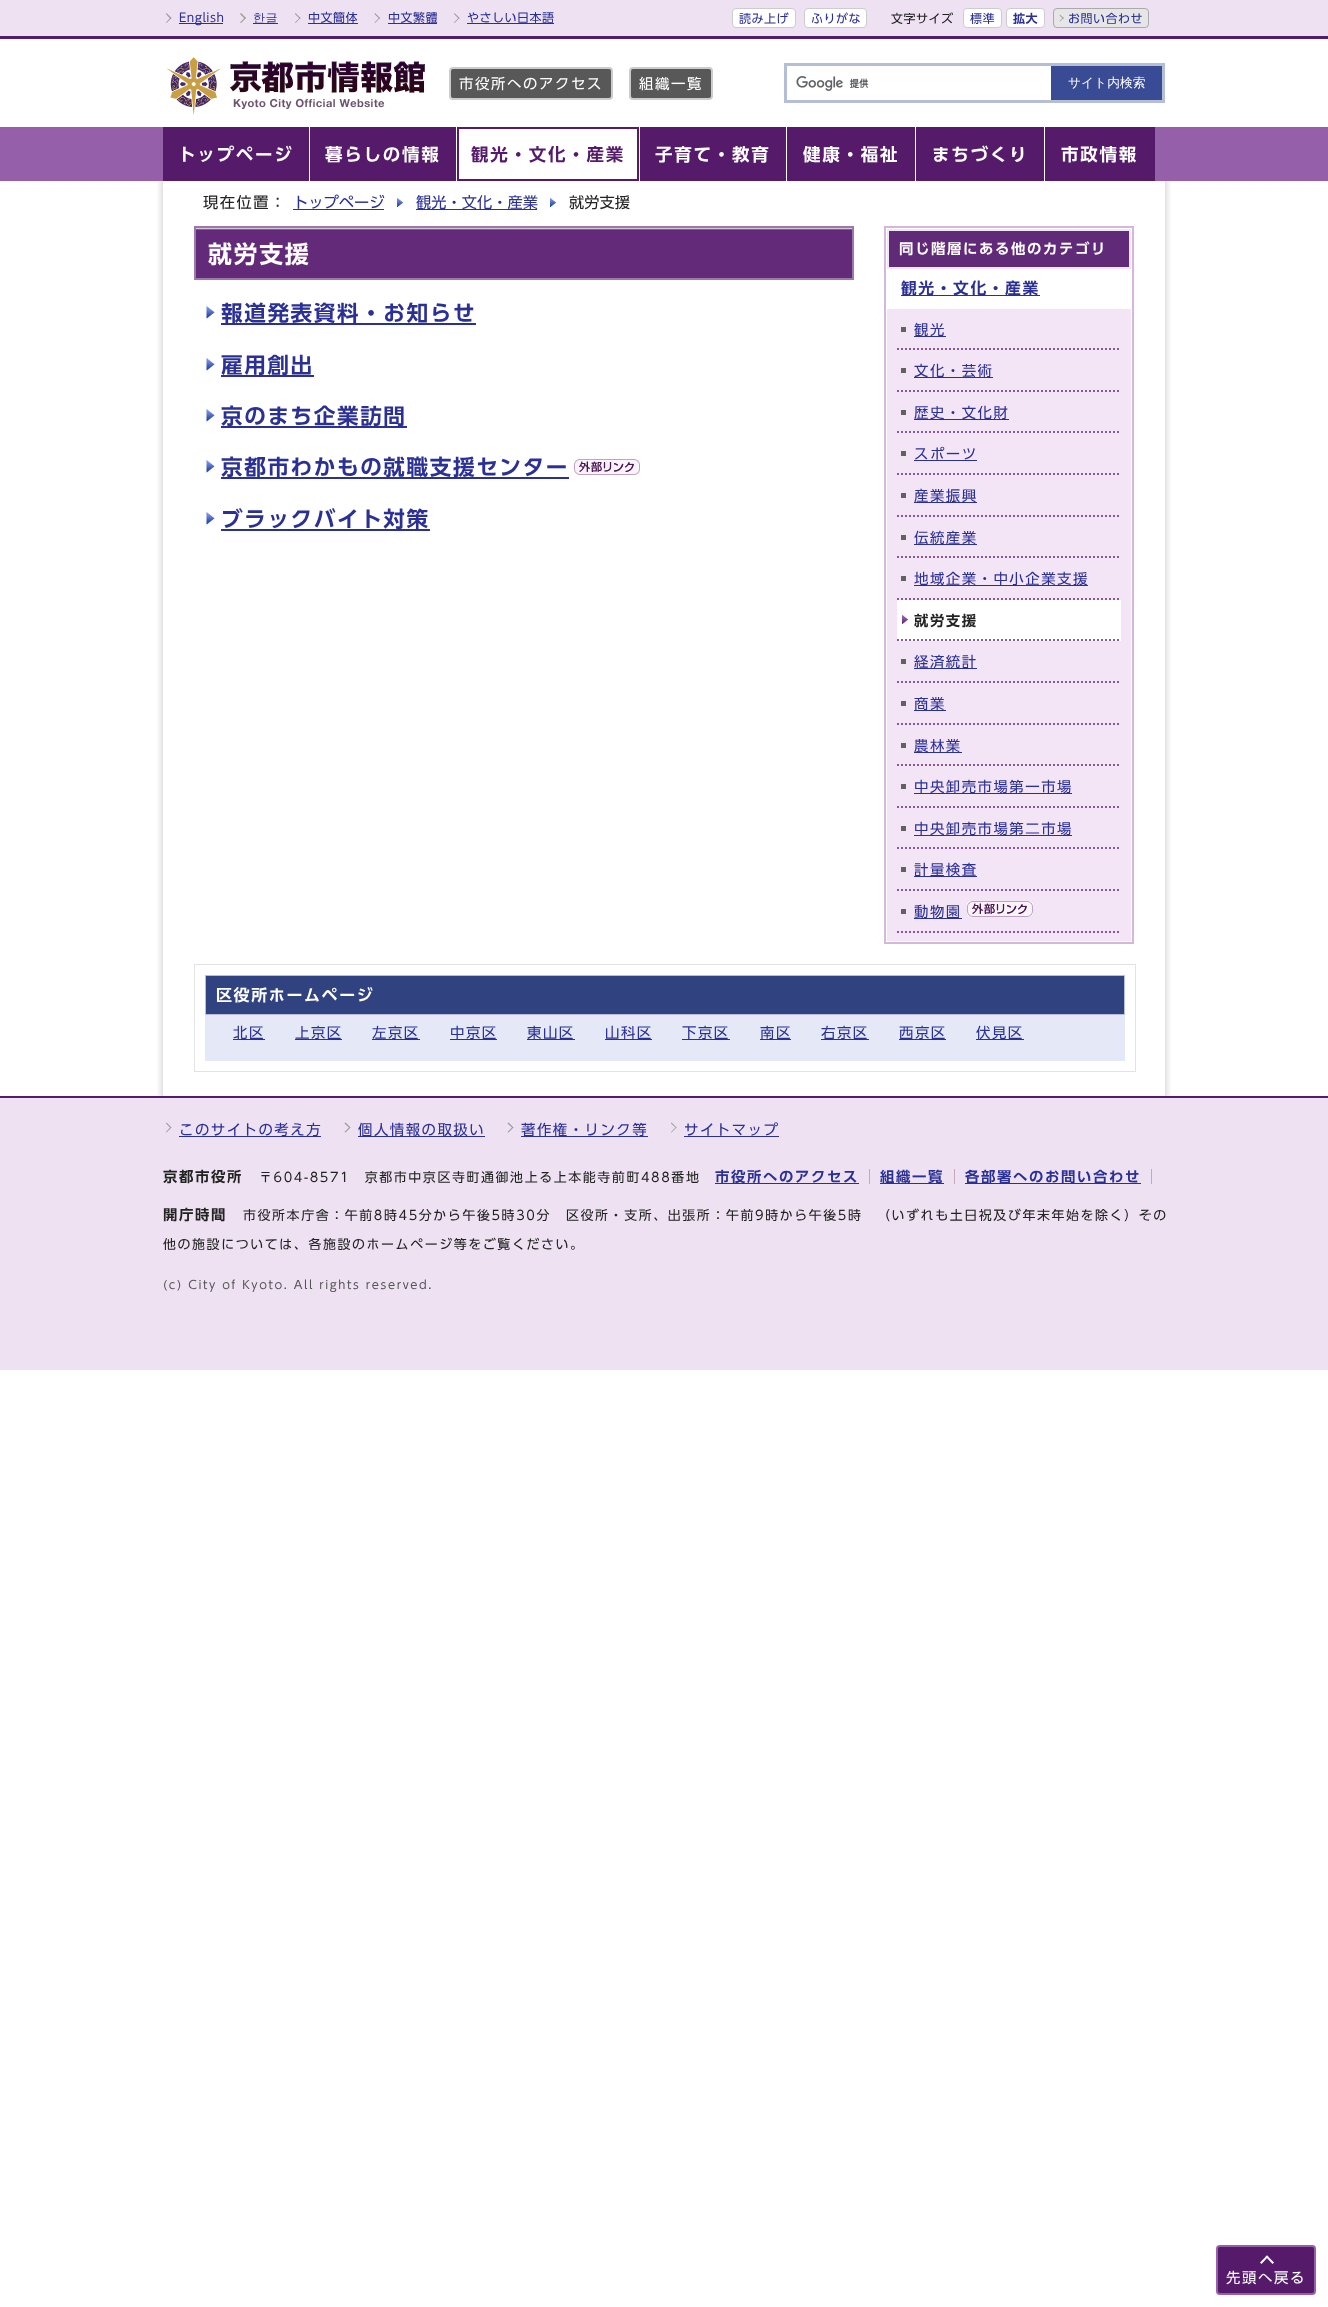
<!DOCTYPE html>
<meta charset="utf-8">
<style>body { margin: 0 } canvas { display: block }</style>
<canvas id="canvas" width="1328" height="2307"></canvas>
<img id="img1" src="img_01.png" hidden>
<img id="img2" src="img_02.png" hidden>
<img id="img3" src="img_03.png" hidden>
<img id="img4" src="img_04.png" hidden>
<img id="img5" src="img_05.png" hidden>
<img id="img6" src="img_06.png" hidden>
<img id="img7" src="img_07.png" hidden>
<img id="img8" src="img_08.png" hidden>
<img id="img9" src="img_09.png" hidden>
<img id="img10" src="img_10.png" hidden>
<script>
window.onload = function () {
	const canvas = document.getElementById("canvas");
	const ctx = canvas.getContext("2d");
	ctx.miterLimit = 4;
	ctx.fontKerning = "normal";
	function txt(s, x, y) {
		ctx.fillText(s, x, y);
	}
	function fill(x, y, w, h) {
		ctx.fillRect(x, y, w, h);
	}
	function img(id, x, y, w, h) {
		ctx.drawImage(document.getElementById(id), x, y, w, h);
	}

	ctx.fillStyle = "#FFFFFF";
	fill(0, 0, 1328, 2307);
	img("img1", 157, 181, 1014, 901);
	ctx.fillStyle = "#EDE1F2";
	fill(0, 0, 1328, 36);
	ctx.fillStyle = "#551A6A";
	fill(0, 36, 1328, 3);
	ctx.fillStyle = "#999999";
	ctx.beginPath();
	ctx.moveTo(166, 14);
	ctx.lineTo(166.5, 13);
	ctx.lineTo(171.5, 18);
	ctx.lineTo(170.5, 19);
	ctx.closePath();
	ctx.fill();
	ctx.beginPath();
	ctx.moveTo(166, 22.5);
	ctx.lineTo(170.5, 17.5);
	ctx.lineTo(171.5, 18);
	ctx.lineTo(166.5, 23);
	ctx.closePath();
	ctx.fill();
	ctx.fillStyle = "#2B3095";
	fill(179, 23, 44, 1);
	ctx.fillStyle = "#999999";
	ctx.beginPath();
	ctx.moveTo(240, 14);
	ctx.lineTo(241, 13);
	ctx.lineTo(246, 18);
	ctx.lineTo(245, 19);
	ctx.closePath();
	ctx.fill();
	ctx.beginPath();
	ctx.moveTo(240, 22.5);
	ctx.lineTo(245, 17.5);
	ctx.lineTo(246, 18);
	ctx.lineTo(241, 23);
	ctx.closePath();
	ctx.fill();
	ctx.fillStyle = "#2B3095";
	fill(253, 23, 25, 1);
	ctx.fillStyle = "#999999";
	ctx.beginPath();
	ctx.moveTo(295, 14);
	ctx.lineTo(295.5, 13);
	ctx.lineTo(300.5, 18);
	ctx.lineTo(300, 19);
	ctx.closePath();
	ctx.fill();
	ctx.beginPath();
	ctx.moveTo(295, 22.5);
	ctx.lineTo(300, 17.5);
	ctx.lineTo(300.5, 18);
	ctx.lineTo(295.5, 23);
	ctx.closePath();
	ctx.fill();
	ctx.fillStyle = "#2B3095";
	fill(308, 23, 50, 1);
	ctx.fillStyle = "#999999";
	ctx.beginPath();
	ctx.moveTo(374.5, 14);
	ctx.lineTo(375, 13);
	ctx.lineTo(380, 18);
	ctx.lineTo(379.5, 19);
	ctx.closePath();
	ctx.fill();
	ctx.beginPath();
	ctx.moveTo(374.5, 22.5);
	ctx.lineTo(379.5, 17.5);
	ctx.lineTo(380, 18);
	ctx.lineTo(375, 23);
	ctx.closePath();
	ctx.fill();
	ctx.fillStyle = "#2B3095";
	fill(388, 23, 49, 1);
	ctx.fillStyle = "#999999";
	ctx.beginPath();
	ctx.moveTo(454, 14);
	ctx.lineTo(454.5, 13);
	ctx.lineTo(459.5, 18);
	ctx.lineTo(459, 19);
	ctx.closePath();
	ctx.fill();
	ctx.beginPath();
	ctx.moveTo(454, 22.5);
	ctx.lineTo(459, 17.5);
	ctx.lineTo(459.5, 18);
	ctx.lineTo(454.5, 23);
	ctx.closePath();
	ctx.fill();
	ctx.fillStyle = "#2B3095";
	fill(467, 23, 87, 1);
	ctx.fillStyle = "#FFFFFF";
	ctx.beginPath();
	ctx.roundRect(732.5, 8.5, 63, 19, 3.5);
	ctx.fill();
	ctx.strokeStyle = "#CCCCCC";
	ctx.stroke();
	ctx.beginPath();
	ctx.roundRect(804.5, 8.5, 62, 19, 3.5);
	ctx.fill();
	ctx.stroke();
	ctx.beginPath();
	ctx.roundRect(963.5, 8.5, 38, 19, 3.5);
	ctx.fill();
	ctx.stroke();
	ctx.beginPath();
	ctx.roundRect(1006.5, 8.5, 38, 19, 3.5);
	ctx.fill();
	ctx.stroke();
	ctx.fillStyle = "#E6E6E6";
	ctx.beginPath();
	ctx.roundRect(1053.5, 8.5, 95, 19, 3.5);
	ctx.fill();
	ctx.strokeStyle = "#AAAAAA";
	ctx.stroke();
	ctx.fillStyle = "#AAAAAA";
	ctx.beginPath();
	ctx.moveTo(1059.5, 15.5);
	ctx.lineTo(1060, 14.5);
	ctx.lineTo(1064, 18);
	ctx.lineTo(1063, 19);
	ctx.closePath();
	ctx.fill();
	ctx.beginPath();
	ctx.moveTo(1059.5, 21);
	ctx.lineTo(1063, 17.5);
	ctx.lineTo(1064, 18);
	ctx.lineTo(1060, 21.5);
	ctx.closePath();
	ctx.fill();
	img("img2", 167, 57, 258, 58);
	ctx.fillStyle = "#585858";
	ctx.beginPath();
	ctx.roundRect(450, 68, 162, 31, 3);
	ctx.fill();
	ctx.strokeStyle = "#CCCCCC";
	ctx.lineWidth = 2;
	ctx.stroke();
	ctx.beginPath();
	ctx.roundRect(630, 68, 82, 31, 3);
	ctx.fill();
	ctx.stroke();
	img("img3", 796, 76, 73, 15);
	ctx.fillStyle = "#B4BED5";
	fill(784, 63, 381, 3);
	fill(784, 100, 267, 3);
	fill(784, 63, 3, 40);
	ctx.fillStyle = "#3A4B95";
	fill(1051, 66, 111, 34);
	ctx.fillStyle = "#B4BED5";
	fill(1162, 63, 3, 40);
	fill(1051, 100, 114, 3);
	ctx.fillStyle = "#965FAA";
	fill(0, 127, 1328, 54);
	ctx.fillStyle = "#FFFFFF";
	fill(309, 127, 1, 54);
	ctx.fillStyle = "#551A6A";
	fill(163, 127, 146, 54);
	ctx.fillStyle = "#FFFFFF";
	fill(456, 127, 1, 54);
	ctx.fillStyle = "#551A6A";
	fill(310, 127, 146, 54);
	ctx.fillStyle = "#FFFFFF";
	fill(639, 127, 1, 54);
	ctx.beginPath();
	ctx.rect(458, 128, 180, 52);
	ctx.fill();
	ctx.strokeStyle = "#551A6A";
	ctx.stroke();
	fill(786, 127, 1, 54);
	ctx.fillStyle = "#551A6A";
	fill(640, 127, 146, 54);
	ctx.fillStyle = "#FFFFFF";
	fill(915, 127, 1, 54);
	ctx.fillStyle = "#551A6A";
	fill(787, 127, 128, 54);
	ctx.fillStyle = "#FFFFFF";
	fill(1044, 127, 1, 54);
	ctx.fillStyle = "#551A6A";
	fill(916, 127, 128, 54);
	fill(1045, 127, 110, 54);
	ctx.fillStyle = "#2B3095";
	fill(293, 209, 91, 1);
	img("img4", 397, 198, 6, 9);
	fill(416, 209, 121, 1);
	img("img4", 550, 198, 6, 9);
	ctx.fillStyle = "#622A78";
	fill(196, 230, 656, 48);
	img("img5", 196, 228, 656, 2);
	ctx.strokeStyle = "#9C78AA";
	ctx.strokeRect(195, 227, 658, 52);
	img("img6", 206, 306, 9, 13);
	ctx.fillStyle = "#2B3095";
	fill(221, 323, 255, 2);
	img("img6", 206, 358, 9, 13);
	fill(221, 375, 93, 2);
	img("img6", 206, 409, 9, 13);
	fill(221, 426, 186, 2);
	img("img6", 206, 460, 9, 13);
	fill(221, 477, 348, 2);
	img("img7", 574, 459, 66, 16);
	img("img6", 206, 512, 9, 13);
	fill(221, 529, 209, 2);
	ctx.strokeStyle = "#D4B7DB";
	ctx.strokeRect(885, 227, 248, 716);
	ctx.fillStyle = "#612A78";
	ctx.beginPath();
	ctx.rect(888, 230, 242, 38);
	ctx.fill();
	ctx.strokeStyle = "#F3E5F6";
	ctx.stroke();
	ctx.fillStyle = "#2B3095";
	fill(901, 295, 139, 1);
	ctx.fillStyle = "#F3E5F6";
	fill(887, 309, 244, 632);
	ctx.fillStyle = "#616161";
	fill(901, 327, 5, 5);
	ctx.beginPath();
	ctx.moveTo(897, 349);
	ctx.lineTo(1121, 349);
	ctx.strokeStyle = "#865C97";
	ctx.setLineDash([2, 2]);
	ctx.stroke();
	ctx.fillStyle = "#2B3095";
	fill(914, 336, 32, 1);
	ctx.fillStyle = "#616161";
	fill(901, 368, 5, 5);
	ctx.beginPath();
	ctx.moveTo(897, 391);
	ctx.lineTo(1121, 391);
	ctx.stroke();
	ctx.fillStyle = "#2B3095";
	fill(914, 377, 79, 1);
	ctx.fillStyle = "#616161";
	fill(901, 410, 5, 5);
	ctx.beginPath();
	ctx.moveTo(897, 432);
	ctx.lineTo(1121, 432);
	ctx.stroke();
	ctx.fillStyle = "#2B3095";
	fill(914, 419, 95, 1);
	ctx.fillStyle = "#616161";
	fill(901, 451, 5, 5);
	ctx.beginPath();
	ctx.moveTo(897, 474);
	ctx.lineTo(1121, 474);
	ctx.stroke();
	ctx.fillStyle = "#2B3095";
	fill(914, 460, 63, 1);
	ctx.fillStyle = "#616161";
	fill(901, 493, 5, 5);
	ctx.beginPath();
	ctx.moveTo(897, 516);
	ctx.lineTo(1121, 516);
	ctx.stroke();
	ctx.fillStyle = "#2B3095";
	fill(914, 502, 63, 1);
	ctx.fillStyle = "#616161";
	fill(901, 535, 5, 5);
	ctx.beginPath();
	ctx.moveTo(897, 557);
	ctx.lineTo(1121, 557);
	ctx.stroke();
	ctx.fillStyle = "#2B3095";
	fill(914, 544, 63, 1);
	ctx.fillStyle = "#616161";
	fill(901, 576, 5, 5);
	ctx.beginPath();
	ctx.moveTo(897, 599);
	ctx.lineTo(1121, 599);
	ctx.stroke();
	ctx.fillStyle = "#2B3095";
	fill(914, 585, 174, 1);
	ctx.fillStyle = "#FFFFFF";
	fill(897, 600, 224, 41);
	img("img8", 902, 615, 6, 9);
	ctx.beginPath();
	ctx.moveTo(897, 640);
	ctx.lineTo(1121, 640);
	ctx.stroke();
	ctx.fillStyle = "#616161";
	fill(901, 659, 5, 5);
	ctx.beginPath();
	ctx.moveTo(897, 682);
	ctx.lineTo(1121, 682);
	ctx.stroke();
	ctx.fillStyle = "#2B3095";
	fill(914, 668, 63, 1);
	ctx.fillStyle = "#616161";
	fill(901, 701, 5, 5);
	ctx.beginPath();
	ctx.moveTo(897, 724);
	ctx.lineTo(1121, 724);
	ctx.stroke();
	ctx.fillStyle = "#2B3095";
	fill(914, 710, 32, 1);
	ctx.fillStyle = "#616161";
	fill(901, 743, 5, 5);
	ctx.beginPath();
	ctx.moveTo(897, 765);
	ctx.lineTo(1121, 765);
	ctx.stroke();
	ctx.fillStyle = "#2B3095";
	fill(914, 752, 48, 1);
	ctx.fillStyle = "#616161";
	fill(901, 784, 5, 5);
	ctx.beginPath();
	ctx.moveTo(897, 807);
	ctx.lineTo(1121, 807);
	ctx.stroke();
	ctx.fillStyle = "#2B3095";
	fill(914, 793, 158, 1);
	ctx.fillStyle = "#616161";
	fill(901, 826, 5, 5);
	ctx.beginPath();
	ctx.moveTo(897, 848);
	ctx.lineTo(1121, 848);
	ctx.stroke();
	ctx.fillStyle = "#2B3095";
	fill(914, 835, 158, 1);
	ctx.fillStyle = "#616161";
	fill(901, 867, 5, 5);
	ctx.beginPath();
	ctx.moveTo(897, 890);
	ctx.lineTo(1121, 890);
	ctx.stroke();
	ctx.fillStyle = "#2B3095";
	fill(914, 876, 63, 1);
	ctx.fillStyle = "#616161";
	fill(901, 909, 5, 5);
	ctx.beginPath();
	ctx.moveTo(897, 932);
	ctx.lineTo(1121, 932);
	ctx.stroke();
	ctx.fillStyle = "#2B3095";
	fill(914, 918, 48, 1);
	img("img9", 967, 901, 66, 16);
	ctx.strokeStyle = "#E3E3E3";
	ctx.lineWidth = 1;
	ctx.setLineDash([]);
	ctx.strokeRect(194.5, 964.5, 941, 107);
	ctx.fillStyle = "#E5E8F6";
	fill(205, 1015, 920, 46);
	ctx.fillStyle = "#304280";
	ctx.beginPath();
	ctx.rect(205.5, 975.5, 919, 39);
	ctx.fill();
	ctx.strokeStyle = "#B7BEDB";
	ctx.stroke();
	ctx.fillStyle = "#2B3095";
	fill(233, 1039, 32, 1);
	fill(295, 1039, 47, 1);
	fill(372, 1039, 48, 1);
	fill(450, 1039, 47, 1);
	fill(527, 1039, 48, 1);
	fill(605, 1039, 47, 1);
	fill(682, 1039, 48, 1);
	fill(760, 1039, 31, 1);
	fill(821, 1039, 48, 1);
	fill(899, 1039, 47, 1);
	fill(976, 1039, 48, 1);
	ctx.fillStyle = "#EDE1F2";
	fill(0, 1098, 1328, 272);
	ctx.fillStyle = "#999999";
	ctx.beginPath();
	ctx.moveTo(166, 1123.5);
	ctx.lineTo(166.5, 1122.5);
	ctx.lineTo(171.5, 1127.5);
	ctx.lineTo(170.5, 1128);
	ctx.closePath();
	ctx.fill();
	ctx.beginPath();
	ctx.moveTo(166, 1132);
	ctx.lineTo(170.5, 1127);
	ctx.lineTo(171.5, 1127.5);
	ctx.lineTo(166.5, 1132.5);
	ctx.closePath();
	ctx.fill();
	ctx.fillStyle = "#2B3095";
	fill(179, 1136, 142, 1);
	ctx.fillStyle = "#999999";
	ctx.beginPath();
	ctx.moveTo(344.5, 1123.5);
	ctx.lineTo(345.5, 1122.5);
	ctx.lineTo(350.5, 1127.5);
	ctx.lineTo(349.5, 1128);
	ctx.closePath();
	ctx.fill();
	ctx.beginPath();
	ctx.moveTo(344.5, 1132);
	ctx.lineTo(349.5, 1127);
	ctx.lineTo(350.5, 1127.5);
	ctx.lineTo(345.5, 1132.5);
	ctx.closePath();
	ctx.fill();
	ctx.fillStyle = "#2B3095";
	fill(358, 1136, 127, 1);
	ctx.fillStyle = "#999999";
	ctx.beginPath();
	ctx.moveTo(507.5, 1123.5);
	ctx.lineTo(508.5, 1122.5);
	ctx.lineTo(513.5, 1127.5);
	ctx.lineTo(512.5, 1128);
	ctx.closePath();
	ctx.fill();
	ctx.beginPath();
	ctx.moveTo(507.5, 1132);
	ctx.lineTo(512.5, 1127);
	ctx.lineTo(513.5, 1127.5);
	ctx.lineTo(508.5, 1132.5);
	ctx.closePath();
	ctx.fill();
	ctx.fillStyle = "#2B3095";
	fill(521, 1136, 127, 1);
	ctx.fillStyle = "#999999";
	ctx.beginPath();
	ctx.moveTo(671, 1123.5);
	ctx.lineTo(671.5, 1122.5);
	ctx.lineTo(676.5, 1127.5);
	ctx.lineTo(676, 1128);
	ctx.closePath();
	ctx.fill();
	ctx.beginPath();
	ctx.moveTo(671, 1132);
	ctx.lineTo(676, 1127);
	ctx.lineTo(676.5, 1127.5);
	ctx.lineTo(671.5, 1132.5);
	ctx.closePath();
	ctx.fill();
	ctx.fillStyle = "#2B3095";
	fill(684, 1136, 95, 1);
	ctx.fillStyle = "#C7A5C3";
	fill(869, 1169, 1, 15);
	ctx.fillStyle = "#2B3095";
	fill(715, 1183, 144, 1);
	ctx.fillStyle = "#C7A5C3";
	fill(954, 1169, 1, 15);
	ctx.fillStyle = "#2B3095";
	fill(880, 1183, 64, 1);
	ctx.fillStyle = "#C7A5C3";
	fill(1151, 1169, 1, 15);
	ctx.fillStyle = "#2B3095";
	fill(965, 1183, 176, 1);
	img("img10", 157, 1082, 1014, 14);
	ctx.fillStyle = "#551A6A";
	fill(0, 1096, 1328, 2);
	ctx.beginPath();
	ctx.roundRect(1217, 2246, 98, 48, 3);
	ctx.fill();
	ctx.strokeStyle = "#965FAA";
	ctx.lineWidth = 2;
	ctx.stroke();
	ctx.fillStyle = "#FFFFFF";
	ctx.beginPath();
	ctx.moveTo(1261.5, 2264);
	ctx.lineTo(1260, 2262.5);
	ctx.lineTo(1267, 2255.5);
	ctx.lineTo(1268.5, 2256.5);
	ctx.closePath();
	ctx.fill();
	ctx.beginPath();
	ctx.moveTo(1272.5, 2264);
	ctx.lineTo(1265.5, 2256.5);
	ctx.lineTo(1267, 2255.5);
	ctx.lineTo(1274, 2262.5);
	ctx.closePath();
	ctx.fill();
	ctx.letterSpacing = "0.5px";
	ctx.font = "12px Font";
	ctx.fillStyle = "#2B3095";
	txt("English", 179, 22);
	ctx.font = "500 12px WenQuanYi Zen Hei";
	txt("한글", 253, 22);
	ctx.font = "12px Font";
	txt("中文簡体", 308, 22);
	txt("中文繁體", 388, 22);
	txt("やさしい日本語", 467, 22);
	txt("読み上げ", 739, 23);
	txt("ふりがな", 811, 23);
	ctx.fillStyle = "#222222";
	txt("文字サイズ", 891, 23);
	ctx.fillStyle = "#2B3095";
	txt("標準", 970, 23);
	ctx.font = "600 12px Font";
	txt("拡大", 1013, 23);
	ctx.font = "12px Font";
	txt("お問い合わせ", 1068, 23);
	ctx.letterSpacing = "1.6px";
	ctx.font = "14.4px Font";
	ctx.fillStyle = "#FFFFFF";
	txt("市役所へのアクセス", 459, 89);
	txt("組織一覧", 639, 89);
	ctx.letterSpacing = "0px";
	ctx.font = "500 12.75px WenQuanYi Zen Hei";
	txt("サイト内検索", 1068, 87);
	ctx.letterSpacing = "1.75px";
	ctx.font = "600 17.5px Font";
	txt("トップページ", 178, 161);
	txt("暮らしの情報", 325, 161);
	ctx.fillStyle = "#551A6A";
	txt("観光・文化・産業", 471, 161);
	ctx.fillStyle = "#FFFFFF";
	txt("子育て・教育", 655, 161);
	txt("健康・福祉", 803, 161);
	txt("まちづくり", 932, 161);
	txt("市政情報", 1061, 161);
	ctx.letterSpacing = "1.5px";
	ctx.font = "15.25px Font";
	ctx.fillStyle = "#222222";
	txt("現在位置：", 203, 208);
	ctx.letterSpacing = "0px";
	ctx.fillStyle = "#2B3095";
	txt("トップページ", 293, 208);
	txt("観光・文化・産業", 416, 208);
	ctx.fillStyle = "#222222";
	txt("就労支援", 569, 208);
	ctx.letterSpacing = "1.6px";
	ctx.font = "600 24px Font";
	ctx.fillStyle = "#FFFFFF";
	txt("就労支援", 208, 263);
	ctx.font = "600 21.6px Font";
	ctx.fillStyle = "#2B3095";
	txt("報道発表資料・お知らせ", 221, 321);
	txt("雇用創出", 221, 373);
	txt("京のまち企業訪問", 221, 424);
	txt("京都市わかもの就職支援センター", 221, 475);
	txt("ブラックバイト対策", 221, 527);
	ctx.font = "600 14.4px Font";
	ctx.fillStyle = "#FFFFFF";
	txt("同じ階層にある他のカテゴリ", 899, 254);
	ctx.font = "600 15.75px Font";
	ctx.fillStyle = "#2B3095";
	txt("観光・文化・産業", 901, 294);
	ctx.letterSpacing = "1.5px";
	ctx.font = "14.4px Font";
	txt("観光", 914, 335);
	txt("文化・芸術", 914, 376);
	txt("歴史・文化財", 914, 418);
	txt("スポーツ", 914, 459);
	txt("産業振興", 914, 501);
	txt("伝統産業", 914, 543);
	txt("地域企業・中小企業支援", 914, 584);
	ctx.font = "600 14.4px Font";
	ctx.fillStyle = "#222222";
	txt("就労支援", 914, 626);
	ctx.font = "14.4px Font";
	ctx.fillStyle = "#2B3095";
	txt("経済統計", 914, 667);
	txt("商業", 914, 709);
	txt("農林業", 914, 751);
	txt("中央卸売市場第一市場", 914, 792);
	txt("中央卸売市場第二市場", 914, 834);
	txt("計量検査", 914, 875);
	txt("動物園", 914, 917);
	ctx.letterSpacing = "1.6px";
	ctx.font = "600 16px Font";
	ctx.fillStyle = "#FFFFFF";
	txt("区役所ホームページ", 216, 1001);
	ctx.letterSpacing = "1.5px";
	ctx.font = "14.4px Font";
	ctx.fillStyle = "#2B3095";
	txt("北区", 233, 1038);
	txt("上京区", 295, 1038);
	txt("左京区", 372, 1038);
	txt("中京区", 450, 1038);
	txt("東山区", 527, 1038);
	txt("山科区", 605, 1038);
	txt("下京区", 682, 1038);
	txt("南区", 760, 1038);
	txt("右京区", 821, 1038);
	txt("西京区", 899, 1038);
	txt("伏見区", 976, 1038);
	txt("このサイトの考え方", 179, 1135);
	txt("個人情報の取扱い", 358, 1135);
	txt("著作権・リンク等", 521, 1135);
	txt("サイトマップ", 684, 1135);
	ctx.letterSpacing = "1.6px";
	ctx.font = "600 14.4px Font";
	ctx.fillStyle = "#222222";
	txt("京都市役所", 163, 1182);
	ctx.font = "12.95px Font";
	txt("〒604-8571　京都市中京区寺町通御池上る上本能寺前町488番地", 259, 1182);
	ctx.font = "600 14.4px Font";
	ctx.fillStyle = "#2B3095";
	txt("市役所へのアクセス", 715, 1182);
	txt("組織一覧", 880, 1182);
	txt("各部署へのお問い合わせ", 965, 1182);
	ctx.fillStyle = "#222222";
	txt("開庁時間", 163, 1220);
	ctx.font = "12.95px Font";
	txt("市役所本庁舎：午前8時45分から午後5時30分", 243, 1220);
	txt("区役所・支所、出張所：午前9時から午後5時", 566, 1220);
	txt("（いずれも土日祝及び年末年始を除く）その", 877, 1220);
	txt("他の施設については、各施設のホームページ等をご覧ください。", 163, 1249);
	ctx.font = "11.5px Font";
	ctx.fillStyle = "#555555";
	txt("(c) City of Kyoto. All rights reserved.", 163, 1289);
	ctx.font = "14.4px Font";
	ctx.fillStyle = "#FFFFFF";
	txt("先頭へ戻る", 1226, 2283);
};
</script>
